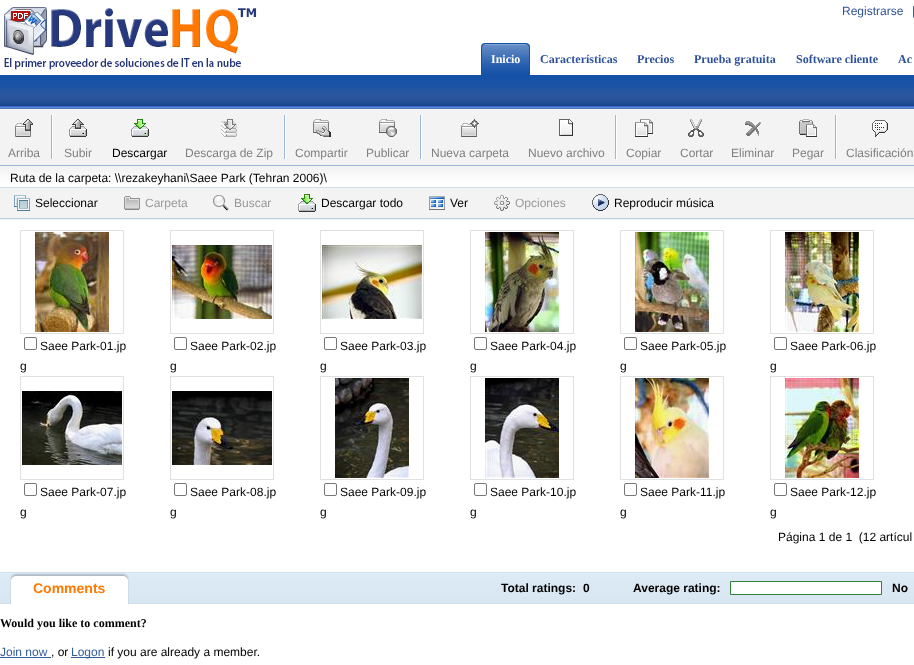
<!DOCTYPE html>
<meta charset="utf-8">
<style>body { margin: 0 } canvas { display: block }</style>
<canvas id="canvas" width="914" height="665"></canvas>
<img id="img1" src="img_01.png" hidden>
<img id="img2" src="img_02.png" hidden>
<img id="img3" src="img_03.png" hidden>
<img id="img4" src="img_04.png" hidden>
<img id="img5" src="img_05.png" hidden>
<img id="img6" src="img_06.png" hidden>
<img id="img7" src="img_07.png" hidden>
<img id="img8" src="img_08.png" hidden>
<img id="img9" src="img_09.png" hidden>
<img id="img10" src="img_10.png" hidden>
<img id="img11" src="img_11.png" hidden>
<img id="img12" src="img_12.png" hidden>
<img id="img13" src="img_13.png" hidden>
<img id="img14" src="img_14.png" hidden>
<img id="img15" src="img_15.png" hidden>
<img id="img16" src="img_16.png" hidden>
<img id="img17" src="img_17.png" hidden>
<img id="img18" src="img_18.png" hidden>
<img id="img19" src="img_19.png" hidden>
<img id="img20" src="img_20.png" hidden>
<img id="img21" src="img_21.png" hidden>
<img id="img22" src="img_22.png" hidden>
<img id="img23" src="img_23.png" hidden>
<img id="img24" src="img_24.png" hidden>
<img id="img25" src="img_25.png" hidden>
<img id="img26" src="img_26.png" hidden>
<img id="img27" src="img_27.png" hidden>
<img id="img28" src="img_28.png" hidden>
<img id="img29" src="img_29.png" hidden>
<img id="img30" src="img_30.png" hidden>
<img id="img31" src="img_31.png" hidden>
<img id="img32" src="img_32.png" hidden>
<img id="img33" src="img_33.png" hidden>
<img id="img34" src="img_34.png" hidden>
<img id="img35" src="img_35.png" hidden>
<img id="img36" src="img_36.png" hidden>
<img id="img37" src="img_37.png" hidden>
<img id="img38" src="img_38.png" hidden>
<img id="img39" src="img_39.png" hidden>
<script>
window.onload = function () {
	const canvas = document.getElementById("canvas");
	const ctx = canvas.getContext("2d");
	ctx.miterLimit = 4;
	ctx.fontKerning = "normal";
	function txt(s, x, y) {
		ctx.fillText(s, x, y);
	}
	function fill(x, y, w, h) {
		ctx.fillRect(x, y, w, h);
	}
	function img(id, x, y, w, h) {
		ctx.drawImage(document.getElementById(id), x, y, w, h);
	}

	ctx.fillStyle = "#FFFFFF";
	fill(0, 0, 914, 665);
	img("img1", 0, 75, 914, 34);
	img("img2", 4, 7, 253, 63);
	img("img3", 481, 43, 4, 32);
	img("img4", 485, 43, 45, 32);
	ctx.fillStyle = "#F3F3F3";
	fill(0, 109, 914, 56);
	ctx.fillStyle = "#9BB9D7";
	fill(0, 165, 914, 1);
	img("img5", 15, 119, 18, 18);
	img("img6", 51, 115, 2, 44);
	img("img7", 69, 119, 18, 18);
	img("img8", 131, 119, 18, 18);
	img("img9", 221, 119, 16, 18);
	img("img6", 284, 115, 2, 44);
	img("img10", 313, 119, 18, 18);
	img("img11", 379, 119, 18, 18);
	img("img6", 420, 115, 2, 44);
	img("img12", 461, 119, 18, 18);
	img("img13", 559, 119, 14, 17);
	img("img6", 615, 115, 2, 44);
	img("img14", 635, 119, 18, 18);
	img("img15", 688, 119, 16, 18);
	img("img16", 745, 121, 16, 15);
	img("img17", 799, 119, 18, 18);
	img("img6", 835, 115, 2, 44);
	img("img18", 872, 120, 16, 17);
	img("img19", 0, 166, 914, 54);
	img("img20", 14, 195, 16, 16);
	img("img21", 124, 196, 16, 14);
	img("img22", 213, 195, 16, 16);
	img("img8", 298, 194, 18, 18);
	img("img23", 429, 196, 16, 14);
	img("img24", 494, 195, 16, 16);
	img("img25", 592, 194, 17, 17);
	ctx.strokeStyle = "#E1E1E1";
	ctx.strokeRect(20.5, 230.5, 103, 103);
	img("img26", 35, 232, 74, 100);
	ctx.beginPath();
	ctx.roundRect(24.5, 337.5, 12, 12, 1.5);
	ctx.strokeStyle = "#767676";
	ctx.stroke();
	ctx.strokeStyle = "#E1E1E1";
	ctx.strokeRect(170.5, 230.5, 103, 103);
	img("img27", 172, 245, 100, 74);
	ctx.beginPath();
	ctx.roundRect(174.5, 337.5, 12, 12, 1.5);
	ctx.strokeStyle = "#767676";
	ctx.stroke();
	ctx.strokeStyle = "#E1E1E1";
	ctx.strokeRect(320.5, 230.5, 103, 103);
	img("img28", 322, 245, 100, 74);
	ctx.beginPath();
	ctx.roundRect(324.5, 337.5, 12, 12, 1.5);
	ctx.strokeStyle = "#767676";
	ctx.stroke();
	ctx.strokeStyle = "#E1E1E1";
	ctx.strokeRect(470.5, 230.5, 103, 103);
	img("img29", 485, 232, 74, 100);
	ctx.beginPath();
	ctx.roundRect(474.5, 337.5, 12, 12, 1.5);
	ctx.strokeStyle = "#767676";
	ctx.stroke();
	ctx.strokeStyle = "#E1E1E1";
	ctx.strokeRect(620.5, 230.5, 103, 103);
	img("img30", 635, 232, 74, 100);
	ctx.beginPath();
	ctx.roundRect(624.5, 337.5, 12, 12, 1.5);
	ctx.strokeStyle = "#767676";
	ctx.stroke();
	ctx.strokeStyle = "#E1E1E1";
	ctx.strokeRect(770.5, 230.5, 103, 103);
	img("img31", 785, 232, 74, 100);
	ctx.beginPath();
	ctx.roundRect(774.5, 337.5, 12, 12, 1.5);
	ctx.strokeStyle = "#767676";
	ctx.stroke();
	ctx.strokeStyle = "#E1E1E1";
	ctx.strokeRect(20.5, 376.5, 103, 103);
	img("img32", 22, 391, 100, 74);
	ctx.beginPath();
	ctx.roundRect(24.5, 483.5, 12, 12, 1.5);
	ctx.strokeStyle = "#767676";
	ctx.stroke();
	ctx.strokeStyle = "#E1E1E1";
	ctx.strokeRect(170.5, 376.5, 103, 103);
	img("img33", 172, 391, 100, 74);
	ctx.beginPath();
	ctx.roundRect(174.5, 483.5, 12, 12, 1.5);
	ctx.strokeStyle = "#767676";
	ctx.stroke();
	ctx.strokeStyle = "#E1E1E1";
	ctx.strokeRect(320.5, 376.5, 103, 103);
	img("img34", 335, 378, 74, 100);
	ctx.beginPath();
	ctx.roundRect(324.5, 483.5, 12, 12, 1.5);
	ctx.strokeStyle = "#767676";
	ctx.stroke();
	ctx.strokeStyle = "#E1E1E1";
	ctx.strokeRect(470.5, 376.5, 103, 103);
	img("img35", 485, 378, 74, 100);
	ctx.beginPath();
	ctx.roundRect(474.5, 483.5, 12, 12, 1.5);
	ctx.strokeStyle = "#767676";
	ctx.stroke();
	ctx.strokeStyle = "#E1E1E1";
	ctx.strokeRect(620.5, 376.5, 103, 103);
	img("img36", 635, 378, 74, 100);
	ctx.beginPath();
	ctx.roundRect(624.5, 483.5, 12, 12, 1.5);
	ctx.strokeStyle = "#767676";
	ctx.stroke();
	ctx.strokeStyle = "#E1E1E1";
	ctx.strokeRect(770.5, 376.5, 103, 103);
	img("img37", 785, 378, 74, 100);
	ctx.beginPath();
	ctx.roundRect(774.5, 483.5, 12, 12, 1.5);
	ctx.strokeStyle = "#767676";
	ctx.stroke();
	img("img38", 0, 572, 914, 32);
	img("img39", 10, 573, 119, 31);
	ctx.fillStyle = "#FFFFFF";
	ctx.beginPath();
	ctx.rect(730.5, 581.5, 151, 13);
	ctx.fill();
	ctx.strokeStyle = "#308038";
	ctx.stroke();
	ctx.fillStyle = "#345D9A";
	fill(0, 657, 51, 1);
	fill(71, 657, 34, 1);
	ctx.font = "12px Liberation Sans";
	ctx.fillStyle = "#2E5299";
	txt("Registrarse", 842, 15);
	txt("|", 912, 15);
	ctx.font = "bold 12px Liberation Serif";
	ctx.fillStyle = "#FFFFFF";
	txt("Inicio", 491, 63);
	ctx.fillStyle = "#2E5299";
	txt("Características", 540, 63);
	txt("Precios", 637, 63);
	txt("Prueba gratuita", 694, 63);
	txt("Software cliente", 796, 63);
	txt("Ac", 898, 63);
	ctx.font = "12px Liberation Sans";
	ctx.fillStyle = "#808080";
	txt("Arriba", 8, 157);
	txt("Subir", 64, 157);
	ctx.fillStyle = "#010000";
	txt("Descargar", 112, 157);
	ctx.fillStyle = "#808080";
	txt("Descarga de Zip", 185, 157);
	txt("Compartir", 295, 157);
	txt("Publicar", 366, 157);
	txt("Nueva carpeta", 431, 157);
	txt("Nuevo archivo", 528, 157);
	txt("Copiar", 626, 157);
	txt("Cortar", 680, 157);
	txt("Eliminar", 731, 157);
	txt("Pegar", 792, 157);
	txt("Clasificación", 846, 157);
	ctx.fillStyle = "#010000";
	txt("Ruta de la carpeta: \\\\rezakeyhani\\Saee Park (Tehran 2006)\\", 10, 182);
	txt("Seleccionar", 35, 207);
	ctx.fillStyle = "#999999";
	txt("Carpeta", 145, 207);
	txt("Buscar", 234, 207);
	ctx.fillStyle = "#010000";
	txt("Descargar todo", 321, 207);
	txt("Ver", 450, 207);
	ctx.fillStyle = "#999999";
	txt("Opciones", 515, 207);
	ctx.fillStyle = "#010000";
	txt("Reproducir música", 614, 207);
	txt("Saee Park-01.jp", 40, 350);
	txt("g", 20, 370);
	txt("Saee Park-02.jp", 190, 350);
	txt("g", 170, 370);
	txt("Saee Park-03.jp", 340, 350);
	txt("g", 320, 370);
	txt("Saee Park-04.jp", 490, 350);
	txt("g", 470, 370);
	txt("Saee Park-05.jp", 640, 350);
	txt("g", 620, 370);
	txt("Saee Park-06.jp", 790, 350);
	txt("g", 770, 370);
	txt("Saee Park-07.jp", 40, 496);
	txt("g", 20, 516);
	txt("Saee Park-08.jp", 190, 496);
	txt("g", 170, 516);
	txt("Saee Park-09.jp", 340, 496);
	txt("g", 320, 516);
	txt("Saee Park-10.jp", 490, 496);
	txt("g", 470, 516);
	txt("Saee Park-11.jp", 640, 496);
	txt("g", 620, 516);
	txt("Saee Park-12.jp", 790, 496);
	txt("g", 770, 516);
	txt("Página 1 de 1  (12 artícul", 778, 541);
	ctx.font = "bold 14px Liberation Sans";
	ctx.fillStyle = "#FF7800";
	txt("Comments", 33, 593);
	ctx.font = "bold 12px Liberation Sans";
	ctx.fillStyle = "#010000";
	txt("Total ratings:", 501, 592);
	txt("0", 583, 592);
	txt("Average rating:", 633, 592);
	txt("No", 892, 592);
	ctx.font = "bold 12px Liberation Serif";
	txt("Would you like to comment?", 0, 627);
	ctx.font = "12px Liberation Sans";
	ctx.fillStyle = "#345D9A";
	txt("Join now", 0, 656);
	ctx.fillStyle = "#010000";
	txt(", or", 51, 656);
	ctx.fillStyle = "#345D9A";
	txt("Logon", 71, 656);
	ctx.fillStyle = "#010000";
	txt("if you are already a member.", 108, 656);
};
</script>
